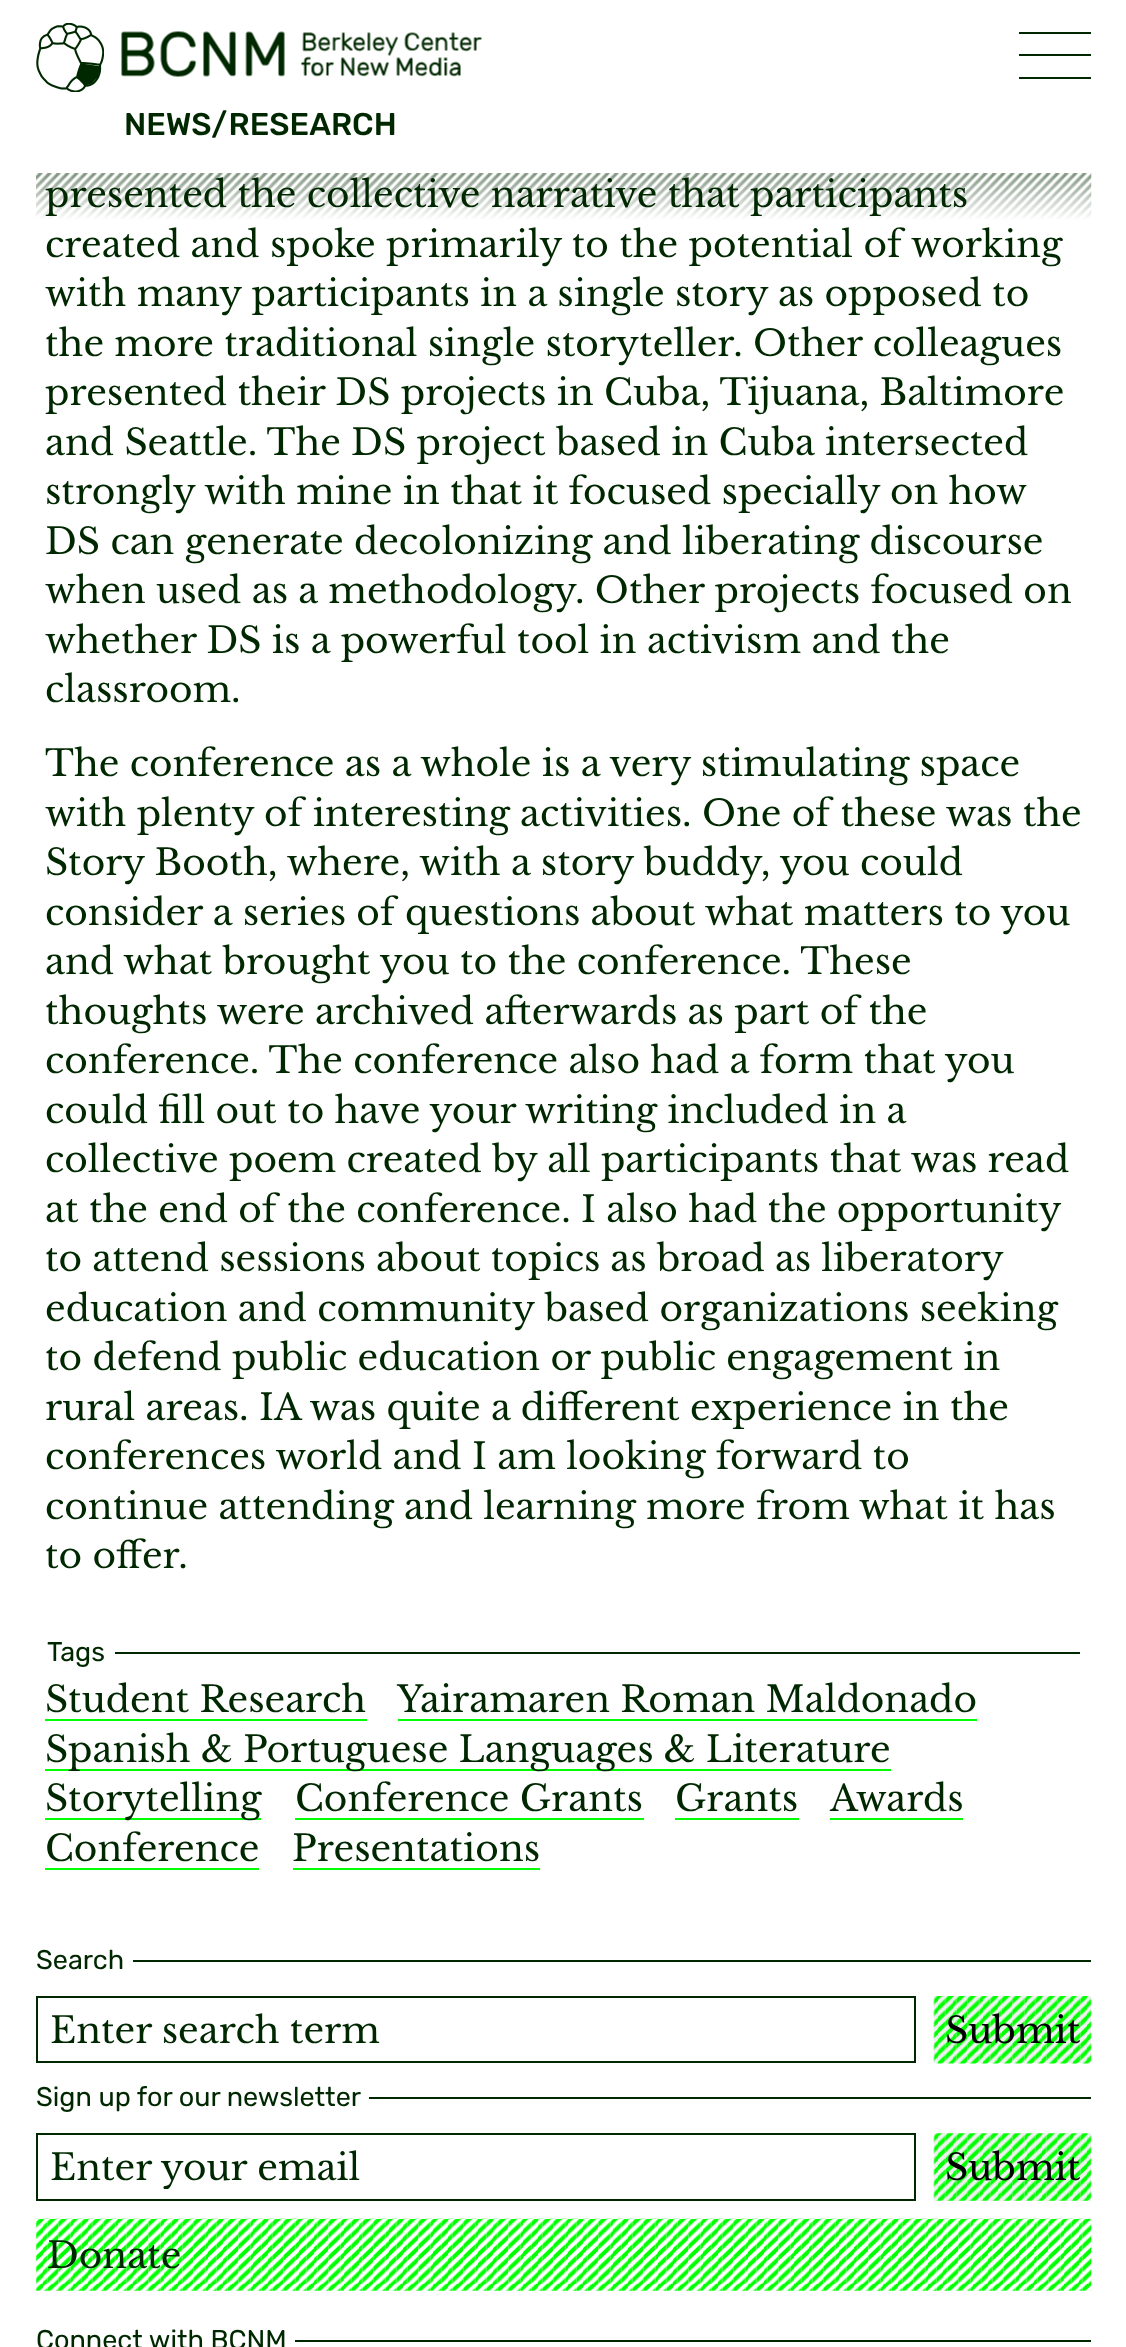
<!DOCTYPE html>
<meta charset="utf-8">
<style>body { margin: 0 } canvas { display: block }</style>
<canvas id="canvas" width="1126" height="2347"></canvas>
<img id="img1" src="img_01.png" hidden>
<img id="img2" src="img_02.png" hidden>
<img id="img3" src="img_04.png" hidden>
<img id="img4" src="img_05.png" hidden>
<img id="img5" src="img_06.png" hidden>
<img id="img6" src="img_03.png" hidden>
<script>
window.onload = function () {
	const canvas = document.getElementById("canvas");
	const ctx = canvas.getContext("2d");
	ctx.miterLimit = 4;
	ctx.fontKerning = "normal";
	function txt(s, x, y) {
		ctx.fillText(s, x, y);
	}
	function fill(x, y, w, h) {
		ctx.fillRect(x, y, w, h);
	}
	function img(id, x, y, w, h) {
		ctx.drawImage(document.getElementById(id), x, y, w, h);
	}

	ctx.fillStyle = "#FFFFFF";
	fill(0, 0, 1126, 2347);
	img("img1", 36, 23, 68, 69);
	img("img2", 121, 31, 361, 46);
	ctx.fillStyle = "#002800";
	fill(1019, 32, 72, 2);
	fill(1019, 54, 72, 2);
	fill(1019, 77, 72, 2);
	fill(115, 1652, 965, 2);
	ctx.fillStyle = "#00FF00";
	fill(45, 1719, 322, 2);
	fill(398, 1719, 579, 2);
	fill(45, 1769, 846, 2);
	fill(45, 1818, 216, 2);
	fill(295, 1818, 349, 2);
	fill(675, 1818, 124, 2);
	fill(830, 1818, 133, 2);
	fill(45, 1868, 214, 2);
	fill(293, 1868, 247, 2);
	ctx.fillStyle = "#002800";
	fill(133, 1960, 958, 2);
	ctx.strokeStyle = "#002800";
	ctx.lineWidth = 2;
	ctx.strokeRect(37, 1997, 878, 65);
	ctx.fillStyle = "#EFEFEF";
	fill(934, 1996, 157, 67);
	img("img3", 933, 1996, 159, 68);
	ctx.fillStyle = "#002800";
	fill(369, 2097, 722, 2);
	ctx.strokeRect(37, 2134, 878, 66);
	ctx.fillStyle = "#EFEFEF";
	fill(934, 2133, 157, 68);
	img("img4", 933, 2133, 159, 68);
	img("img5", 36, 2218, 1056, 73);
	ctx.fillStyle = "#002800";
	fill(295, 2340, 796, 2);
	ctx.font = "300 31.5px 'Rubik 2'";
	txt("NEWS/RESEARCH", 124, 135);
	ctx.font = "36px Libre Baskerville";
	txt("presented the collective narrative that participants", 45, 207);
	img("img6", 36, 173, 1056, 46);
	txt("created and spoke primarily to the potential of working", 45, 257);
	txt("with many participants in a single story as opposed to", 45, 306);
	txt("the more traditional single storyteller. Other colleagues", 45, 356);
	txt("presented their DS projects in Cuba, Tijuana, Baltimore", 45, 405);
	txt("and Seattle. The DS project based in Cuba intersected", 45, 455);
	txt("strongly with mine in that it focused specially on how", 45, 504);
	txt("DS can generate decolonizing and liberating discourse", 45, 554);
	txt("when used as a methodology. Other projects focused on", 45, 603);
	txt("whether DS is a powerful tool in activism and the", 45, 653);
	txt("classroom.", 45, 702);
	txt("The conference as a whole is a very stimulating space", 45, 776);
	txt("with plenty of interesting activities. One of these was the", 45, 826);
	txt("Story Booth, where, with a story buddy, you could", 45, 875);
	txt("consider a series of questions about what matters to you", 45, 925);
	txt("and what brought you to the conference. These", 45, 974);
	txt("thoughts were archived afterwards as part of the", 45, 1024);
	txt("conference. The conference also had a form that you", 45, 1073);
	txt("could fill out to have your writing included in a", 45, 1123);
	txt("collective poem created by all participants that was read", 45, 1172);
	txt("at the end of the conference. I also had the opportunity", 45, 1222);
	ctx.wordSpacing = "-0.25px";
	txt("to attend sessions about topics as broad as liberatory", 45, 1271);
	ctx.wordSpacing = "0px";
	txt("education and community based organizations seeking", 45, 1321);
	txt("to defend public education or public engagement in", 45, 1370);
	txt("rural areas. IA was quite a different experience in the", 45, 1420);
	txt("conferences world and I am looking forward to", 45, 1469);
	txt("continue attending and learning more from what it has", 45, 1519);
	txt("to offer.", 45, 1568);
	ctx.font = "300 27px Rubik";
	txt("Tags", 47, 1661);
	ctx.font = "36px Libre Baskerville";
	txt("Student Research", 45, 1712);
	txt("Yairamaren Roman Maldonado", 397, 1712);
	txt("Spanish & Portuguese Languages & Literature", 45, 1762);
	txt("Storytelling", 45, 1811);
	txt("Conference Grants", 295, 1811);
	txt("Grants", 675, 1811);
	txt("Awards", 830, 1811);
	txt("Conference", 45, 1861);
	txt("Presentations", 292, 1861);
	ctx.font = "300 27px Rubik";
	txt("Search", 36, 1969);
	ctx.font = "36px Libre Baskerville";
	txt("Enter search term", 50, 2043);
	ctx.fillStyle = "#000000";
	txt("Submit", 945, 2043);
	ctx.font = "300 27px Rubik";
	ctx.fillStyle = "#002800";
	txt("Sign up for our newsletter", 36, 2106);
	ctx.save();
	ctx.beginPath();
	ctx.rect(50, 2144, 852, 45);
	ctx.clip();
	ctx.font = "36px Libre Baskerville";
	txt("Enter your email", 50, 2180);
	ctx.restore();
	ctx.font = "36px Libre Baskerville";
	ctx.fillStyle = "#000000";
	txt("Submit", 945, 2180);
	ctx.fillStyle = "#002800";
	txt("Donate", 47, 2268);
	ctx.font = "300 27px Rubik";
	txt("Connect with BCNM", 36, 2349);
};
</script>
